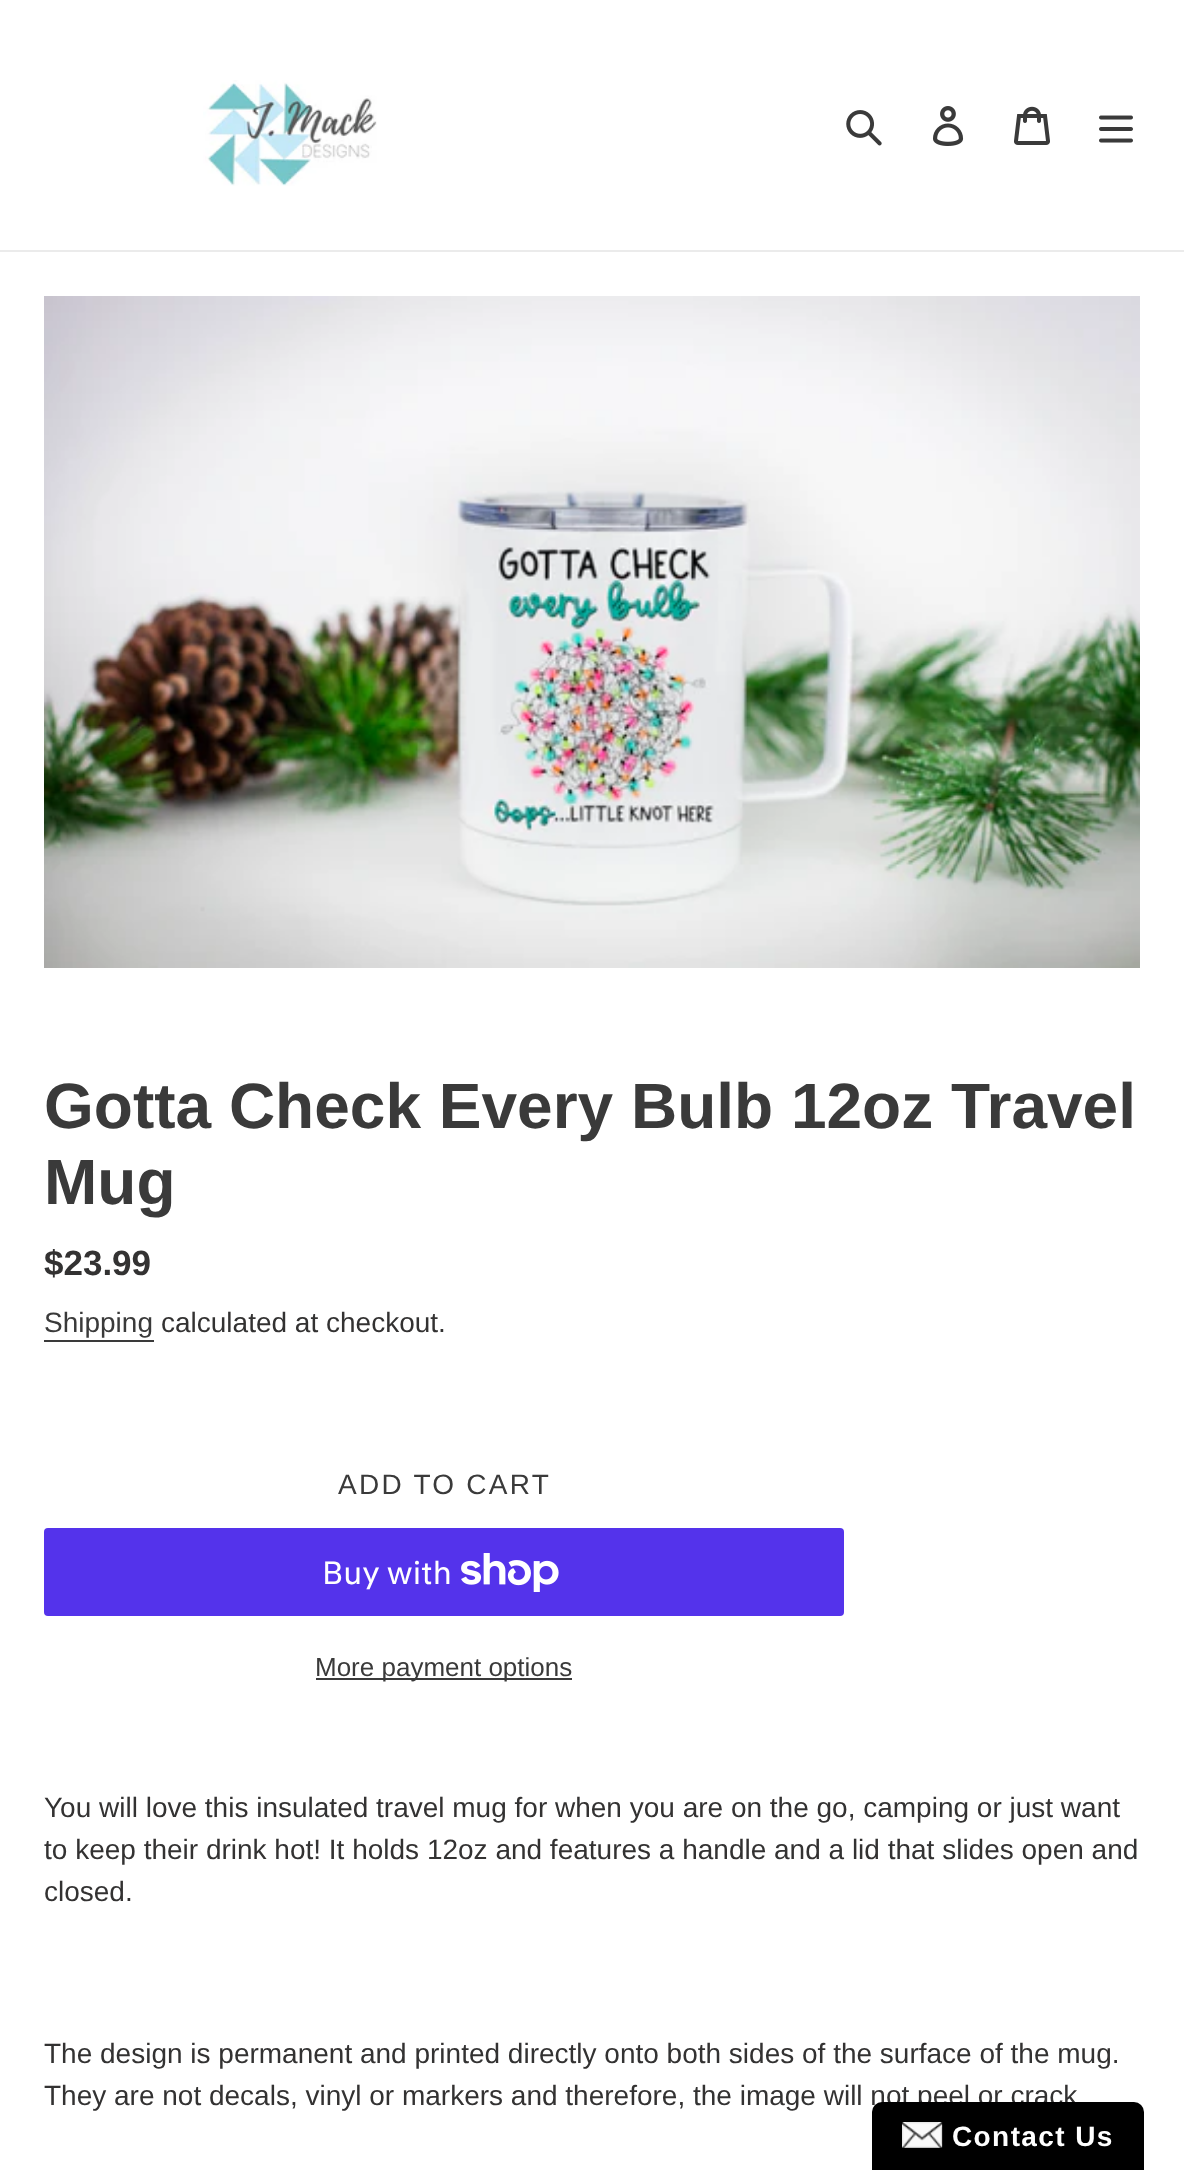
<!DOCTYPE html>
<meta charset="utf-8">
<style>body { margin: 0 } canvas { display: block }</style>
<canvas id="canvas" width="1184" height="2170"></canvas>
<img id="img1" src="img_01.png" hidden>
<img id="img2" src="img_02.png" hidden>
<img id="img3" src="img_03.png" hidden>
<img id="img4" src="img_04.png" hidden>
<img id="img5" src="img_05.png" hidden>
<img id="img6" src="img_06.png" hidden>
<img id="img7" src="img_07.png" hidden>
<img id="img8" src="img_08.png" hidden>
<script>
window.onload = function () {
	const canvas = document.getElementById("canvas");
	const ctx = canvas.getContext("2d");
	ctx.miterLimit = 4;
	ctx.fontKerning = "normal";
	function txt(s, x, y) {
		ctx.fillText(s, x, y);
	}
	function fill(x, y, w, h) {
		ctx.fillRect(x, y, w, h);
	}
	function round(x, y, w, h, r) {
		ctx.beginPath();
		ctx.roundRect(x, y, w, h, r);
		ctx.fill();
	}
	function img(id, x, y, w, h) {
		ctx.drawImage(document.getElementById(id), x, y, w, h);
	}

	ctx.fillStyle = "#FFFFFF";
	fill(0, 0, 1184, 2170);
	ctx.fillStyle = "#EBEBEB";
	fill(0, 250, 1184, 2);
	img("img1", 203, 80, 174, 106);
	img("img2", 846, 110, 36, 36);
	img("img3", 933, 106, 31, 40);
	img("img4", 1014, 106, 36, 39);
	img("img5", 1099, 115, 34, 28);
	img("img6", 44, 296, 1096, 672);
	ctx.fillStyle = "#3A3A3A";
	fill(44, 1340, 110, 2);
	ctx.fillStyle = "#5433EB";
	round(44, 1528, 800, 88, 4);
	img("img7", 461, 1553, 98, 39);
	ctx.fillStyle = "#3A3A3A";
	fill(316, 1678, 256, 2);
	ctx.font = "bold 64px Liberation Sans";
	txt("Gotta Check Every Bulb 12oz Travel", 44, 1128);
	txt("Mug", 44, 1204);
	ctx.font = "bold 35px Liberation Sans";
	ctx.fillStyle = "#333232";
	txt("$23.99", 44, 1275);
	ctx.font = "28px Liberation Sans";
	ctx.fillStyle = "#3A3A3A";
	txt("Shipping", 44, 1332);
	ctx.fillStyle = "#333232";
	txt("calculated at checkout.", 161, 1332);
	ctx.letterSpacing = "2.25px";
	ctx.fillStyle = "#3A3A3A";
	txt("ADD TO CART", 338, 1494);
	ctx.letterSpacing = "0px";
	ctx.font = "32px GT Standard";
	ctx.fillStyle = "#FFFFFF";
	txt("Buy with", 322, 1584);
	ctx.font = "26px Liberation Sans";
	ctx.fillStyle = "#3A3A3A";
	txt("More payment options", 315, 1676);
	ctx.font = "28px Liberation Sans";
	ctx.fillStyle = "#333232";
	txt("You will love this insulated travel mug for when you are on the go, camping or just want", 44, 1817);
	txt("to keep their drink hot! It holds 12oz and features a handle and a lid that slides open and", 44, 1859);
	txt("closed.", 44, 1901);
	txt("The design is permanent and printed directly onto both sides of the surface of the mug.", 44, 2063);
	txt("They are not decals, vinyl or markers and therefore, the image will not peel or crack", 44, 2105);
	ctx.fillStyle = "#000000";
	ctx.beginPath();
	ctx.roundRect(872, 2102, 272, 68, [10, 10, 0, 0]);
	ctx.fill();
	img("img8", 902, 2122, 41, 26);
	ctx.letterSpacing = "1.4px";
	ctx.font = "bold 28px Liberation Sans";
	ctx.fillStyle = "#FFFFFF";
	txt("Contact Us", 952, 2146);
};
</script>
